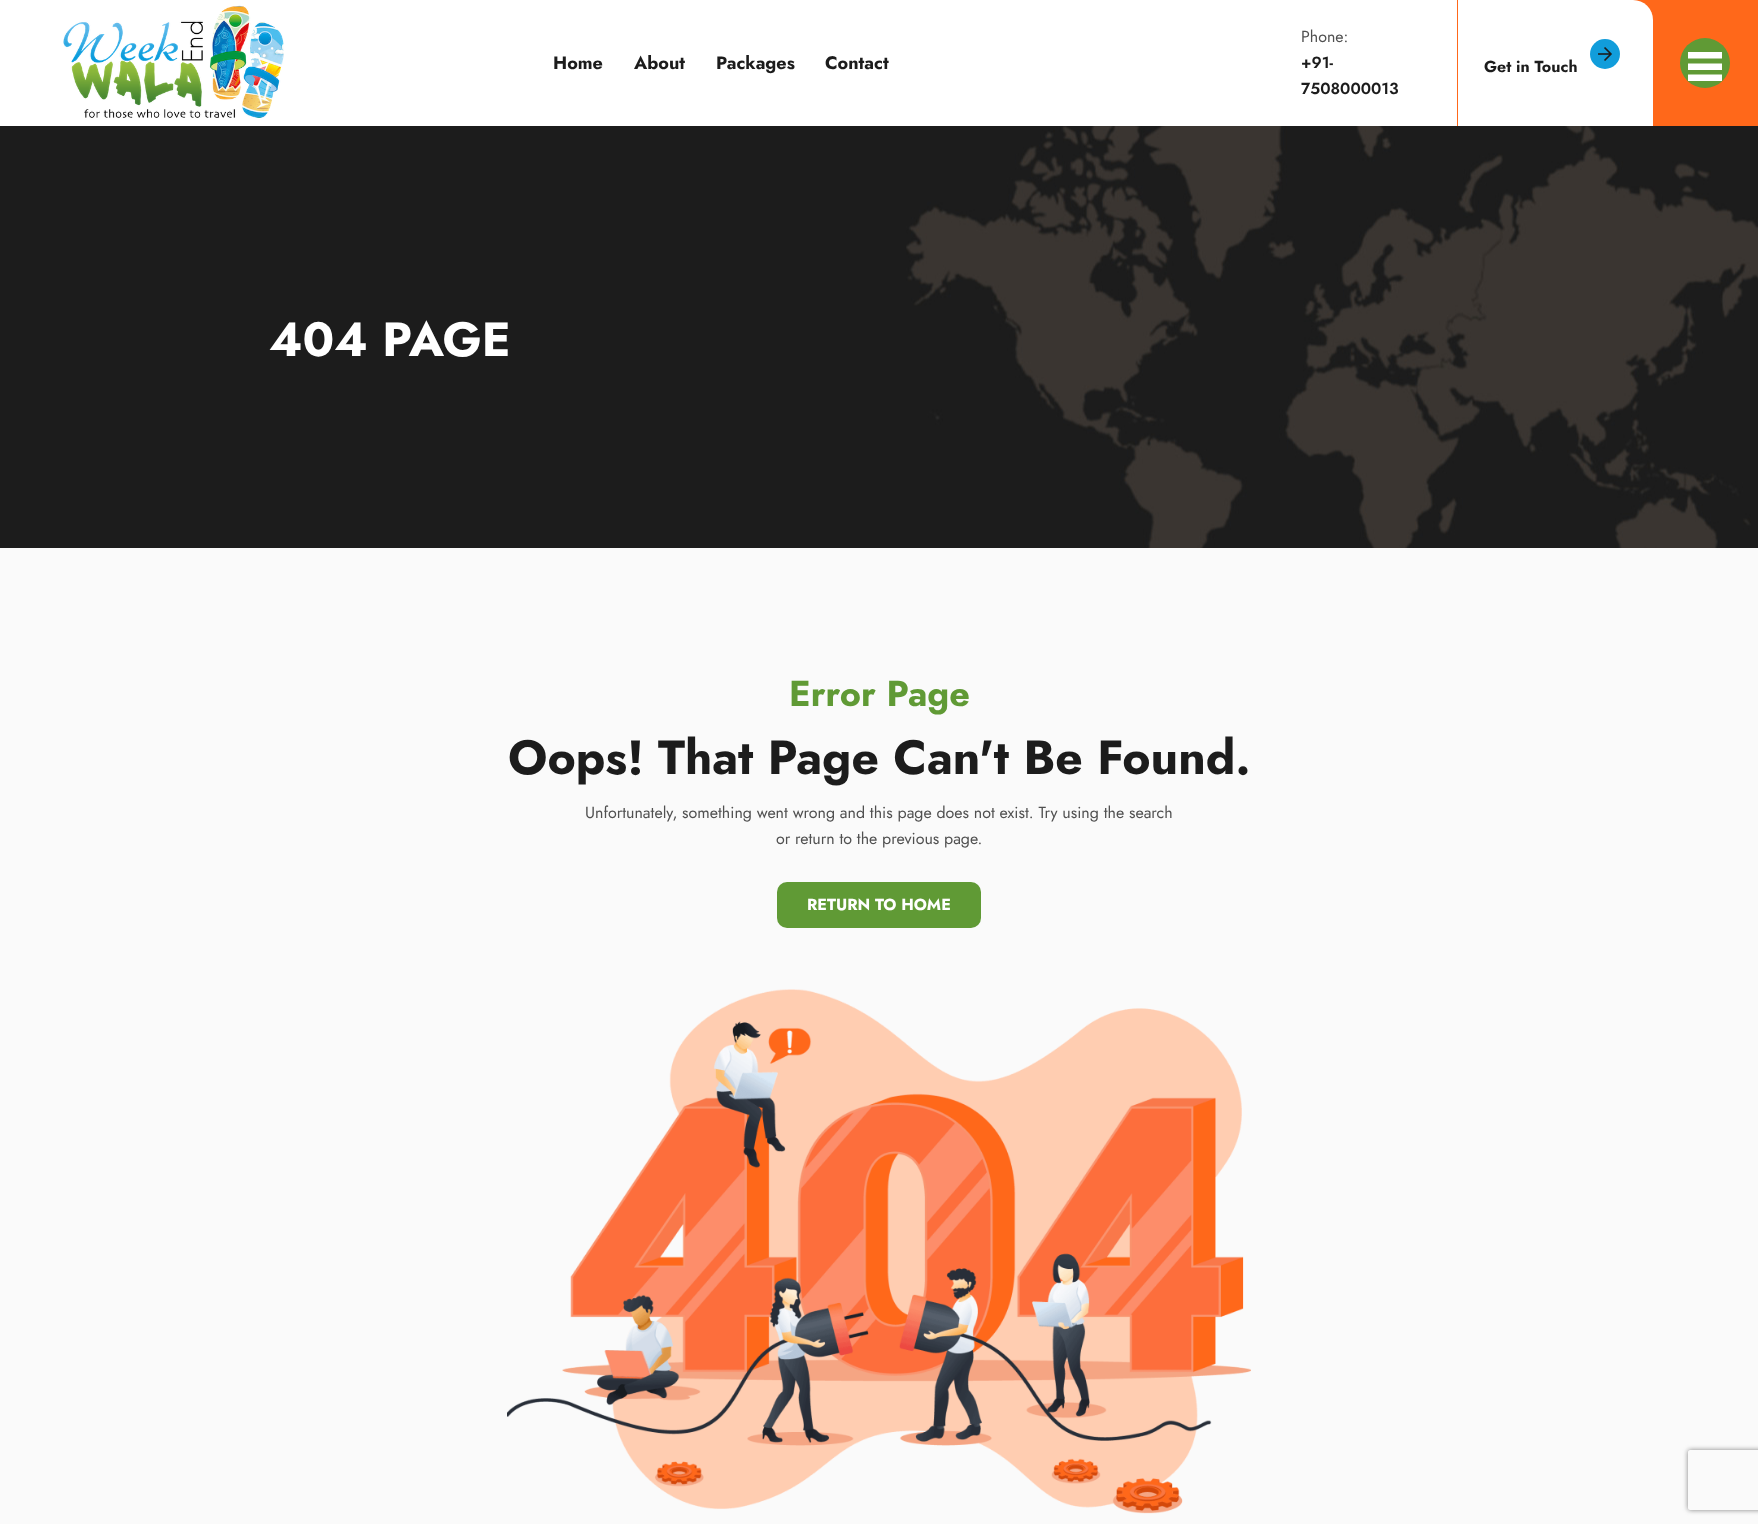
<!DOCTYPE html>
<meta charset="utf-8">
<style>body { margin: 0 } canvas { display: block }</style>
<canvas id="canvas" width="1758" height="1524"></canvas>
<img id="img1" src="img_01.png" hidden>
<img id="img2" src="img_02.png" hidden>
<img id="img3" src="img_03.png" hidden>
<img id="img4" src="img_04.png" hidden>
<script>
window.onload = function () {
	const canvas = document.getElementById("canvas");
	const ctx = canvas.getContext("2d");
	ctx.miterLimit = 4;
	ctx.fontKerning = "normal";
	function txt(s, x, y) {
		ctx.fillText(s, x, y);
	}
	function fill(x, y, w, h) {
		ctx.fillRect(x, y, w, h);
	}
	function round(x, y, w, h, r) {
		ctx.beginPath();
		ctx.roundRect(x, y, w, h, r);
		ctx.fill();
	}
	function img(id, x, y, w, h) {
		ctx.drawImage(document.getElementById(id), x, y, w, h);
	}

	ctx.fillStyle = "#1C1C1C";
	fill(0, 0, 1758, 1524);
	ctx.fillStyle = "#FF681A";
	fill(1633, 0, 125, 126);
	ctx.fillStyle = "#FFFFFF";
	ctx.beginPath();
	ctx.roundRect(0, 0, 1653, 126, [0, 20, 0, 0]);
	ctx.fill();
	img("img1", 63, 5, 221, 113);
	ctx.fillStyle = "#FF681A";
	fill(1457, 0, 1, 126);
	ctx.fillStyle = "#119DDB";
	ctx.beginPath();
	ctx.arc(1605, 54, 15, 0, Math.PI * 2);
	ctx.fill();
	img("img2", 1598, 47, 14, 14);
	ctx.fillStyle = "#609A35";
	ctx.beginPath();
	ctx.arc(1705, 63, 25, 0, Math.PI * 2);
	ctx.fill();
	ctx.fillStyle = "#FFFFFF";
	ctx.beginPath();
	ctx.moveTo(1688, 81);
	ctx.lineTo(1722, 81);
	ctx.lineTo(1722, 74.5);
	ctx.lineTo(1688, 74.5);
	ctx.closePath();
	ctx.moveTo(1688, 70);
	ctx.lineTo(1722, 70);
	ctx.lineTo(1722, 63.5);
	ctx.lineTo(1688, 63.5);
	ctx.closePath();
	ctx.moveTo(1688, 58.5);
	ctx.lineTo(1722, 58.5);
	ctx.lineTo(1722, 52);
	ctx.lineTo(1688, 52);
	ctx.closePath();
	ctx.fill();
	img("img3", 906, 126, 852, 422);
	ctx.fillStyle = "#FAFAFA";
	fill(0, 548, 1758, 976);
	ctx.fillStyle = "#609A35";
	round(777, 882, 204, 46, 10);
	img("img4", 507, 989, 744, 525);
	ctx.save();
	ctx.beginPath();
	ctx.moveTo(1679, 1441);
	ctx.lineTo(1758, 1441);
	ctx.lineTo(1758, 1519);
	ctx.lineTo(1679, 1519);
	ctx.closePath();
	ctx.moveTo(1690, 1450);
	ctx.lineTo(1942, 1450);
	ctx.bezierCurveTo(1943, 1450, 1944, 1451, 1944, 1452);
	ctx.lineTo(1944, 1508);
	ctx.bezierCurveTo(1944, 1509, 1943, 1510, 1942, 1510);
	ctx.lineTo(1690, 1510);
	ctx.bezierCurveTo(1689, 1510, 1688, 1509, 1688, 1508);
	ctx.lineTo(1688, 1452);
	ctx.bezierCurveTo(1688, 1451, 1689, 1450, 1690, 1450);
	ctx.closePath();
	ctx.clip("evenodd");
	ctx.fillStyle = "#808080";
	ctx.filter = "blur(2.5px)";
	ctx.beginPath();
	ctx.roundRect(1688, 1450, 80, 60, 2);
	ctx.fill();
	ctx.filter = "none";
	ctx.restore();
	ctx.font = "bold 18px Jost";
	ctx.fillStyle = "#1C1C1C";
	txt("Home", 553, 69);
	txt("About", 634, 69);
	txt("Packages", 716, 69);
	txt("Contact", 825, 69);
	ctx.font = "16px Jost";
	ctx.fillStyle = "#505050";
	txt("Phone:", 1301, 42);
	ctx.font = "600 16px Jost";
	ctx.fillStyle = "#1C1C1C";
	txt("+91-", 1301, 68);
	txt("7508000013", 1301, 94);
	ctx.font = "bold 16px Jost";
	txt("Get in Touch", 1484, 72);
	ctx.font = "bold 48px Jost";
	ctx.fillStyle = "#FFFFFF";
	txt("404 PAGE", 269, 356);
	ctx.font = "bold 36px Jost";
	ctx.fillStyle = "#609A35";
	txt("Error Page", 789, 706);
	ctx.font = "bold 48px Jost";
	ctx.fillStyle = "#1C1C1C";
	txt("Oops! That Page Can't Be Found.", 508, 774);
	ctx.font = "16px Jost";
	ctx.fillStyle = "#505050";
	txt("Unfortunately, something went wrong and this page does not exist. Try using the search", 585, 818);
	txt("or return to the previous page.", 776, 844);
	ctx.font = "bold 16px Jost";
	ctx.fillStyle = "#FFFFFF";
	txt("RETURN TO HOME", 807, 910);
};
</script>
